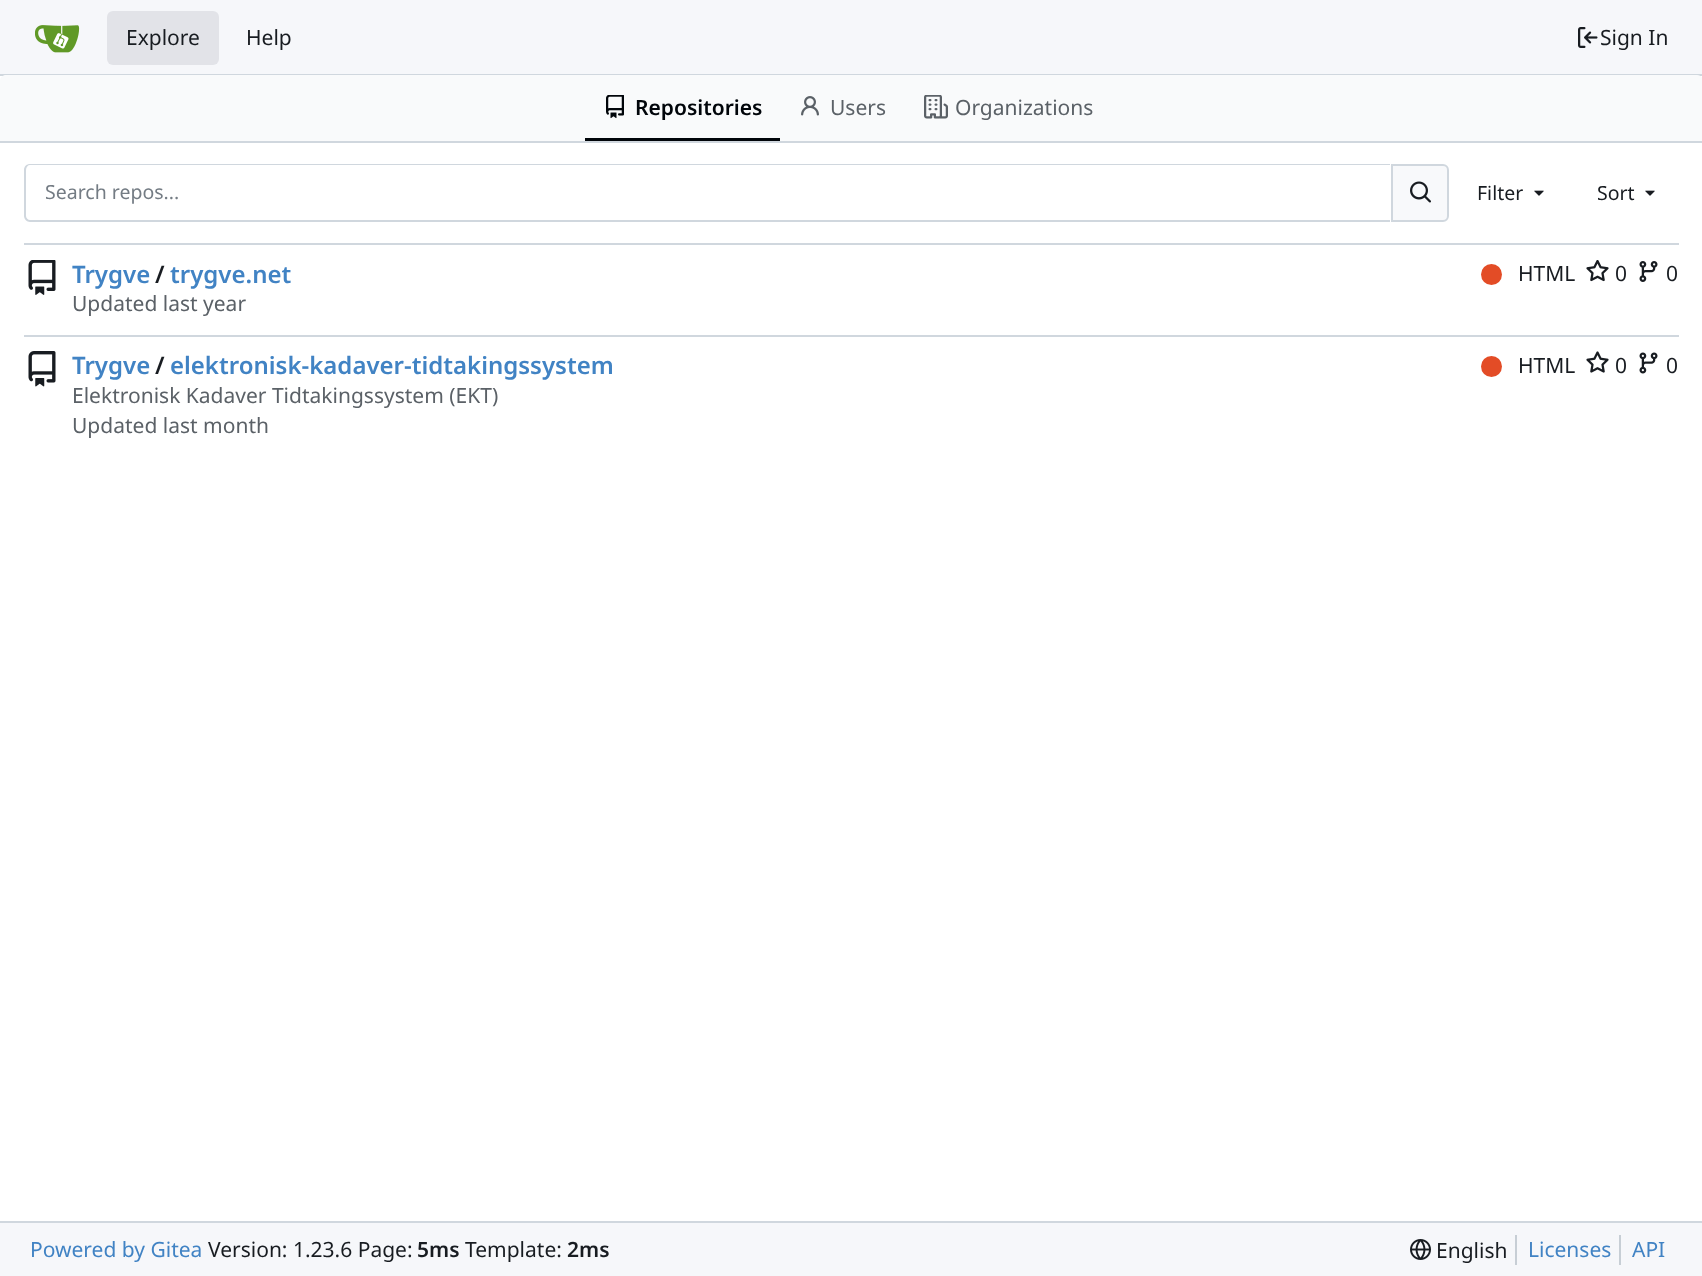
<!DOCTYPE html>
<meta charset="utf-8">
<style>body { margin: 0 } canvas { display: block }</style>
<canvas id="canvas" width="1702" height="1276"></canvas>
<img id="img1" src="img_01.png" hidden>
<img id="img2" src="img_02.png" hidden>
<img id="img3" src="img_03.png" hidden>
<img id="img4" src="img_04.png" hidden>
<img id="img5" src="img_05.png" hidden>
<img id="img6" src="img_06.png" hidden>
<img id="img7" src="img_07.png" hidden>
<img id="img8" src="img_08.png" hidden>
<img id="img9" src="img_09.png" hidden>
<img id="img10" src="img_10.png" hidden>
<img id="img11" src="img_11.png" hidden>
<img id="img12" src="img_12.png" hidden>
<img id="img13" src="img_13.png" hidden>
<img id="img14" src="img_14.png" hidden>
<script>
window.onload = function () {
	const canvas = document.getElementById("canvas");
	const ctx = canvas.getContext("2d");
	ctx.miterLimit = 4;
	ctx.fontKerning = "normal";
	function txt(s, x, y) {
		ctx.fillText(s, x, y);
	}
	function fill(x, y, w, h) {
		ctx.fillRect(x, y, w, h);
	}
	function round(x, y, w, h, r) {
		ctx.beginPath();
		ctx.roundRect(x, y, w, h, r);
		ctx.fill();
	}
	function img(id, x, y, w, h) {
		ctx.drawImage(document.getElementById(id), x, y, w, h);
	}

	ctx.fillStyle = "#FFFFFF";
	fill(0, 0, 1702, 1276);
	ctx.fillStyle = "#F6F7FA";
	fill(0, 0, 1702, 74);
	ctx.fillStyle = "#D0D7DE";
	fill(0, 74, 1702, 2);
	img("img1", 35, 25, 45, 28);
	ctx.fillStyle = "#E2E3E8";
	round(107, 11, 112, 54, 6);
	img("img2", 1578, 27, 20, 21);
	ctx.fillStyle = "#F9FAFB";
	ctx.beginPath();
	ctx.moveTo(6, 75);
	ctx.lineTo(1697, 75);
	ctx.bezierCurveTo(1700.5, 75, 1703, 77.5, 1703, 81);
	ctx.lineTo(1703, 143);
	ctx.lineTo(0, 143);
	ctx.lineTo(0, 81);
	ctx.bezierCurveTo(0, 77.5, 2.5, 75, 6, 75);
	ctx.closePath();
	ctx.fill();
	ctx.fillStyle = "#D0D7DE";
	fill(0, 141, 1702, 2);
	ctx.fillStyle = "#01050A";
	fill(585, 138, 195, 3);
	img("img3", 606, 95, 18, 24);
	img("img4", 801, 96, 18, 20);
	img("img5", 924, 95, 24, 24);
	ctx.fillStyle = "#D0D7DE";
	ctx.beginPath();
	ctx.moveTo(30, 164);
	ctx.lineTo(1390, 164);
	ctx.lineTo(1390, 222);
	ctx.lineTo(30, 222);
	ctx.bezierCurveTo(27, 222, 24, 219, 24, 216);
	ctx.lineTo(24, 170);
	ctx.bezierCurveTo(24, 166, 27, 164, 30, 164);
	ctx.closePath();
	ctx.moveTo(30, 165);
	ctx.lineTo(1390, 165);
	ctx.lineTo(1390, 220);
	ctx.lineTo(30, 220);
	ctx.bezierCurveTo(28, 220, 26, 218, 26, 216);
	ctx.lineTo(26, 170);
	ctx.bezierCurveTo(26, 167, 28, 165, 30, 165);
	ctx.closePath();
	ctx.fill("evenodd");
	ctx.fillStyle = "#F8F9FB";
	ctx.beginPath();
	ctx.roundRect(1392, 165, 56, 56, [0, 5, 5, 0]);
	ctx.fill();
	ctx.strokeStyle = "#D0D7DE";
	ctx.lineWidth = 2;
	ctx.stroke();
	img("img6", 1410, 181, 21, 22);
	img("img7", 1534, 190, 10, 6);
	img("img7", 1645, 190, 10, 6);
	ctx.fillStyle = "#D0D7DE";
	fill(24, 243, 1655, 2);
	img("img8", 28, 260, 28, 35);
	ctx.fillStyle = "#E34C26";
	ctx.beginPath();
	ctx.arc(1491.5, 274.5, 10.5, 0, Math.PI * 2);
	ctx.fill();
	img("img9", 1586, 260, 23, 22);
	img("img10", 1639, 261, 19, 21);
	ctx.fillStyle = "#D0D7DE";
	fill(24, 335, 1655, 2);
	img("img11", 28, 351, 28, 36);
	ctx.fillStyle = "#E34C26";
	ctx.beginPath();
	ctx.arc(1491.5, 366.5, 10.5, 0, Math.PI * 2);
	ctx.fill();
	img("img12", 1586, 351, 23, 22);
	img("img13", 1639, 352, 19, 22);
	ctx.fillStyle = "#F6F7FA";
	fill(0, 1223, 1702, 53);
	ctx.fillStyle = "#D0D7DE";
	fill(0, 1221, 1702, 2);
	img("img14", 1410, 1239, 21, 21);
	ctx.fillStyle = "#C7CED5";
	fill(1515, 1235, 2, 30);
	fill(1619, 1235, 2, 30);
	ctx.font = "21px Noto Sans";
	ctx.fillStyle = "#181C21";
	txt("Explore", 126, 45);
	txt("Help", 246, 45);
	txt("Sign In", 1600, 45);
	ctx.font = "600 21px Noto Sans";
	ctx.fillStyle = "#01050A";
	txt("Repositories", 635, 115);
	ctx.font = "21px Noto Sans";
	ctx.fillStyle = "#5B6167";
	txt("Users", 830, 115);
	txt("Organizations", 955, 115);
	ctx.font = "19.5px Noto Sans";
	ctx.fillStyle = "#747C84";
	txt("Search repos...", 45, 199);
	ctx.fillStyle = "#181C21";
	txt("Filter", 1477, 200);
	txt("Sort", 1597, 200);
	ctx.font = "600 24px Noto Sans";
	ctx.fillStyle = "#4183C4";
	txt("Trygve", 72, 283);
	ctx.fillStyle = "#181C21";
	txt("/", 155, 283);
	ctx.fillStyle = "#4183C4";
	txt("trygve.net", 170, 283);
	ctx.font = "21px Noto Sans";
	ctx.fillStyle = "#181C21";
	txt("HTML", 1518, 281);
	txt("0", 1615, 281);
	txt("0", 1666, 281);
	ctx.fillStyle = "#5B6167";
	txt("Updated last year", 72, 311);
	ctx.font = "600 24px Noto Sans";
	ctx.fillStyle = "#4183C4";
	txt("Trygve", 72, 374);
	ctx.fillStyle = "#181C21";
	txt("/", 155, 374);
	ctx.fillStyle = "#4183C4";
	txt("elektronisk-kadaver-tidtakingssystem", 170, 374);
	ctx.font = "21px Noto Sans";
	ctx.fillStyle = "#181C21";
	txt("HTML", 1518, 373);
	txt("0", 1615, 373);
	txt("0", 1666, 373);
	ctx.fillStyle = "#5B6167";
	txt("Elektronisk Kadaver Tidtakingssystem (EKT)", 72, 403);
	txt("Updated last month", 72, 433);
	ctx.fillStyle = "#4183C4";
	txt("Powered by Gitea", 30, 1257);
	ctx.fillStyle = "#181C21";
	txt("Version: 1.23.6 Page:", 208, 1257);
	ctx.font = "600 21px Noto Sans";
	txt("5ms", 417, 1257);
	ctx.font = "21px Noto Sans";
	txt("Template:", 465, 1257);
	ctx.font = "600 21px Noto Sans";
	txt("2ms", 567, 1257);
	ctx.font = "21px Noto Sans";
	txt("English", 1436, 1258);
	ctx.fillStyle = "#4183C4";
	txt("Licenses", 1528, 1257);
	txt("API", 1632, 1257);
};
</script>
